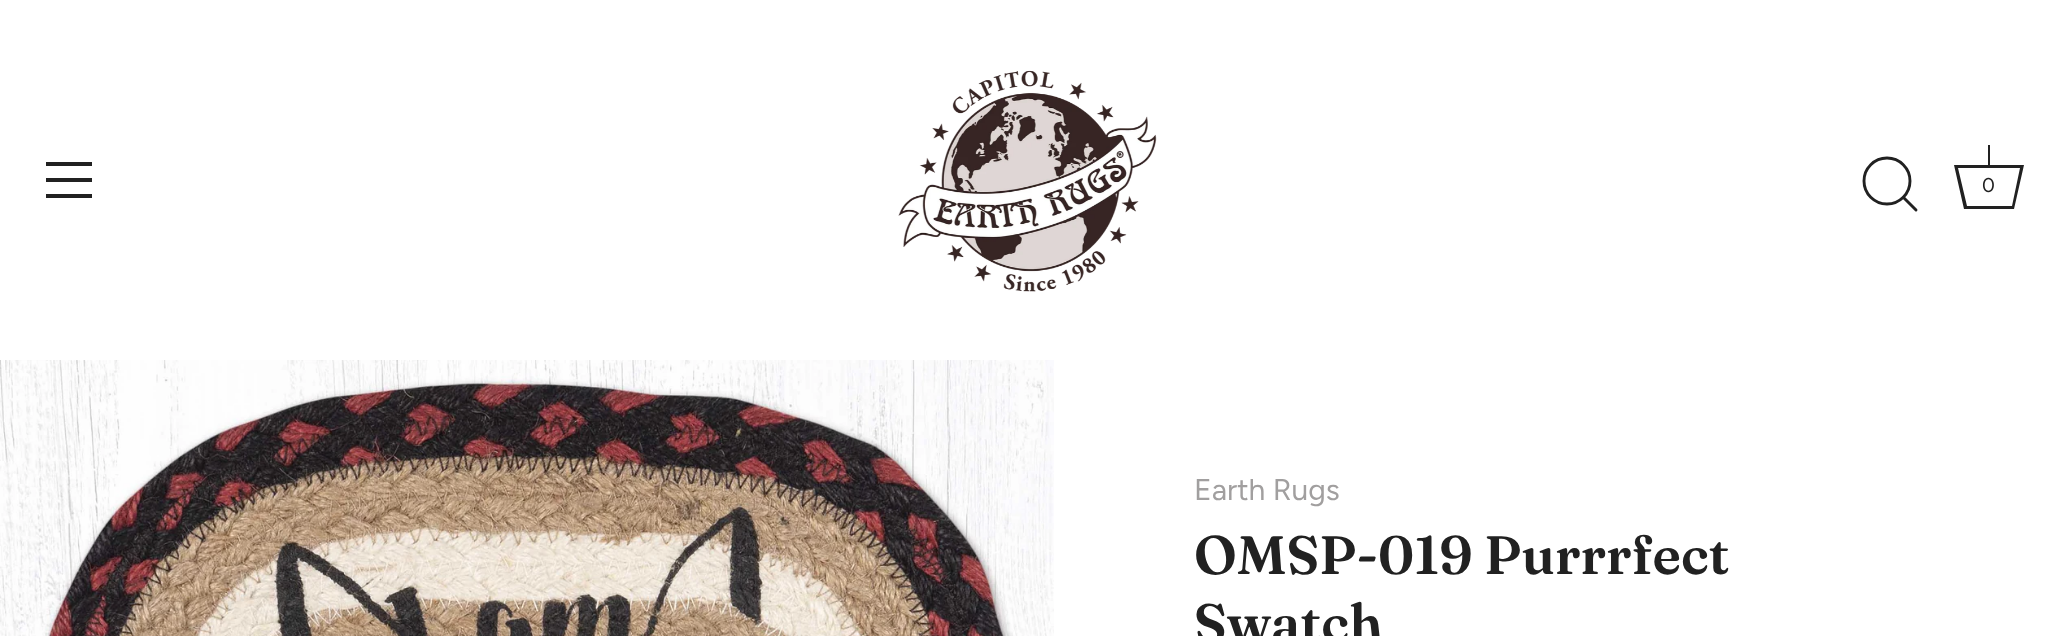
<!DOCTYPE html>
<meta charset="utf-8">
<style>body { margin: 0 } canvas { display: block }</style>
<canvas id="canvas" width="2054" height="636"></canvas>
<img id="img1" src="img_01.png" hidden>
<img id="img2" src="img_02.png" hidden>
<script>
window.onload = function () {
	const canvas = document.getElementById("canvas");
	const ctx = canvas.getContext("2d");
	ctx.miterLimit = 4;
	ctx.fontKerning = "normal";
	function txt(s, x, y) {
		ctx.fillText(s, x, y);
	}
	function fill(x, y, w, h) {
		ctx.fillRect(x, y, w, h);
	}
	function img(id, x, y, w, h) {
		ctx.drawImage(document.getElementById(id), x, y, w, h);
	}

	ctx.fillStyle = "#FFFFFF";
	fill(0, 0, 2054, 636);
	ctx.fillStyle = "#212121";
	fill(46, 162, 46, 4);
	fill(46, 178, 46, 4);
	fill(46, 194, 46, 4);
	img("img1", 898, 70, 259, 222);
	ctx.beginPath();
	ctx.arc(1887, 181, 23, 0, Math.PI * 2);
	ctx.strokeStyle = "#212121";
	ctx.lineWidth = 2.9;
	ctx.stroke();
	ctx.beginPath();
	ctx.moveTo(1916, 210);
	ctx.lineTo(1903.5, 197.5);
	ctx.lineCap = "round";
	ctx.lineJoin = "round";
	ctx.stroke();
	fill(1988, 145, 2, 20);
	ctx.beginPath();
	ctx.moveTo(2020, 168);
	ctx.lineTo(2012, 206);
	ctx.lineTo(1967, 206);
	ctx.lineTo(1958, 168);
	ctx.lineTo(2020, 168);
	ctx.moveTo(2024, 165);
	ctx.lineTo(1954, 165);
	ctx.lineTo(1964, 209);
	ctx.lineTo(2014, 209);
	ctx.closePath();
	ctx.fill();
	img("img2", 0, 360, 1054, 276);
	ctx.font = "20px Figtree";
	txt("0", 1982, 192);
	ctx.font = "30px Figtree";
	ctx.fillStyle = "#A19F9F";
	txt("Earth Rugs", 1194, 500);
	ctx.font = "600 54px Fraunces";
	ctx.fillStyle = "#212121";
	txt("OMSP-019 Purrrfect", 1194, 574);
	txt("Swatch", 1194, 642);
};
</script>
